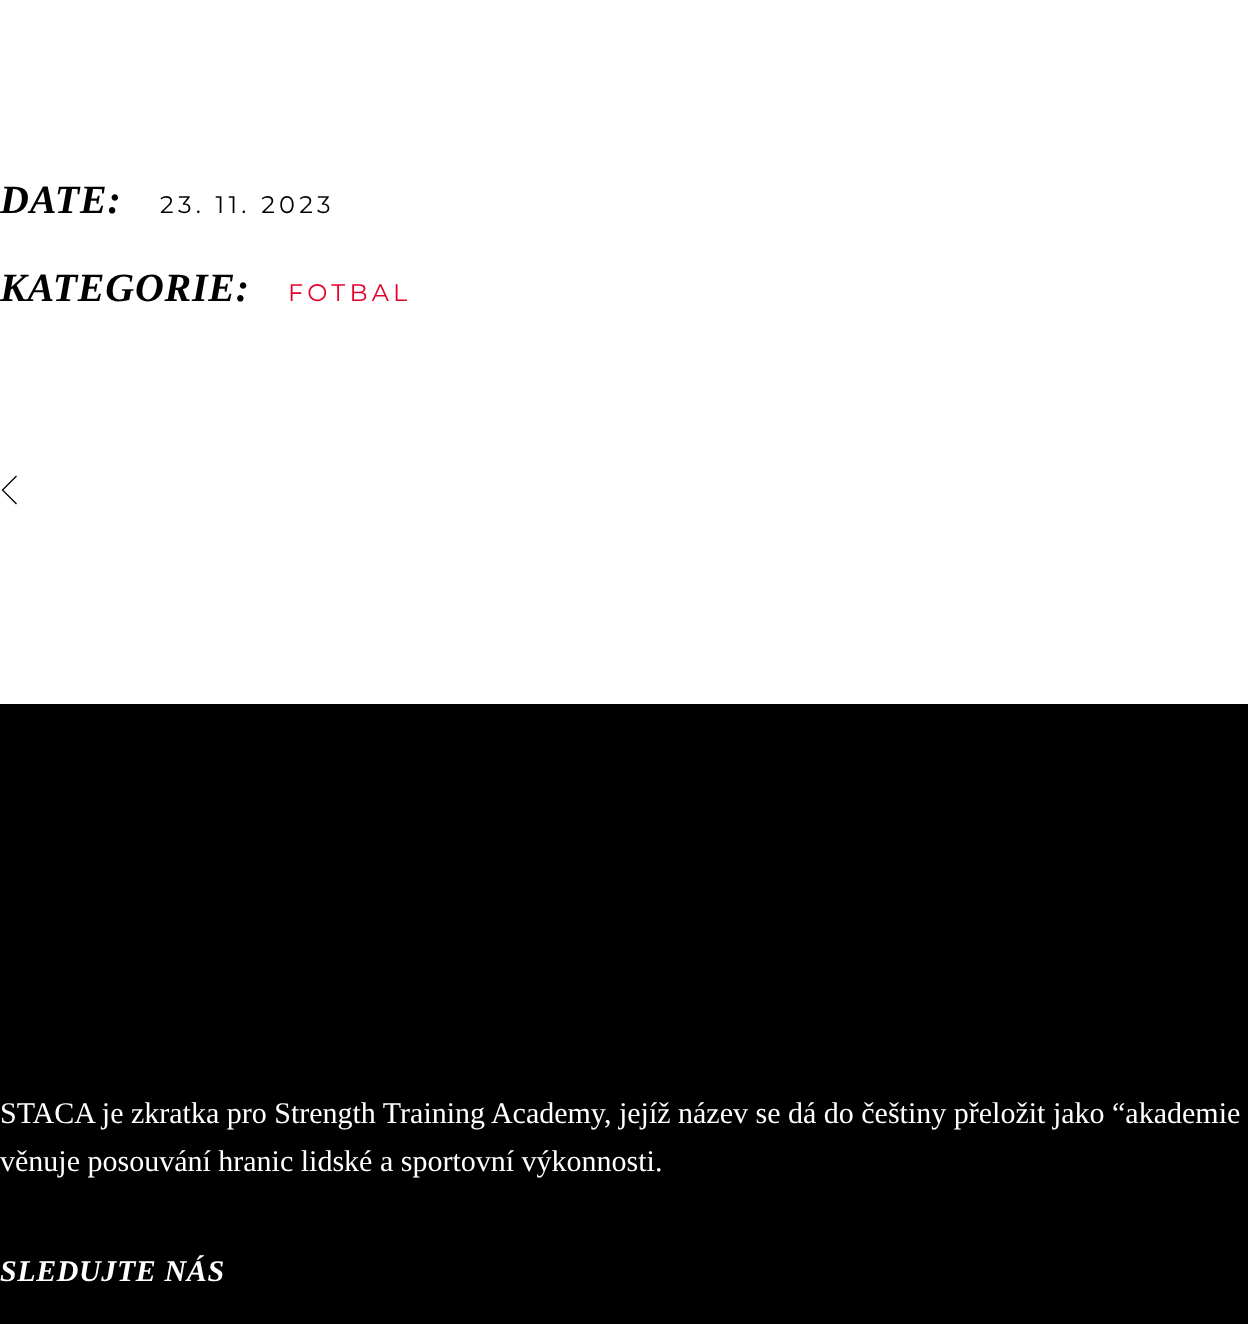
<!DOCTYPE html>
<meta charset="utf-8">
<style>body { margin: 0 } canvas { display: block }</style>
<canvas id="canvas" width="1248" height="1324"></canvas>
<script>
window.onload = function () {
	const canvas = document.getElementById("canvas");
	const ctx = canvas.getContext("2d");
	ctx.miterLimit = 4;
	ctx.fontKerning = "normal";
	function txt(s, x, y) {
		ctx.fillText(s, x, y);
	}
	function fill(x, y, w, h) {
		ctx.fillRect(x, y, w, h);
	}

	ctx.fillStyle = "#FFFFFF";
	fill(0, 0, 1248, 1324);
	ctx.beginPath();
	ctx.moveTo(16.5, 504);
	ctx.lineTo(2.5, 490);
	ctx.lineTo(16.5, 476);
	ctx.strokeStyle = "#000000";
	ctx.lineWidth = 1.3;
	ctx.stroke();
	ctx.fillStyle = "#000000";
	fill(0, 704, 1248, 620);
	ctx.letterSpacing = "0.75px";
	ctx.font = "italic bold 40px Liberation Serif";
	txt("DATE:", 0, 213);
	ctx.letterSpacing = "4.25px";
	ctx.font = "24px Montserrat";
	txt("23. 11. 2023", 160, 213);
	ctx.letterSpacing = "0.75px";
	ctx.font = "italic bold 40px Liberation Serif";
	txt("KATEGORIE:", 0, 301);
	ctx.letterSpacing = "4.25px";
	ctx.font = "24px Montserrat";
	ctx.fillStyle = "#E4002B";
	txt("FOTBAL", 288, 301);
	ctx.letterSpacing = "0px";
	ctx.font = "30px Liberation Serif";
	ctx.fillStyle = "#FFFFFF";
	txt("STACA je zkratka pro Strength Training Academy, jejíž název se dá do češtiny přeložit jako “akademie", 0, 1123);
	txt("věnuje posouvání hranic lidské a sportovní výkonnosti.", 0, 1171);
	ctx.letterSpacing = "0.6px";
	ctx.font = "italic bold 30px Liberation Serif";
	txt("SLEDUJTE NÁS", 0, 1281);
};
</script>
